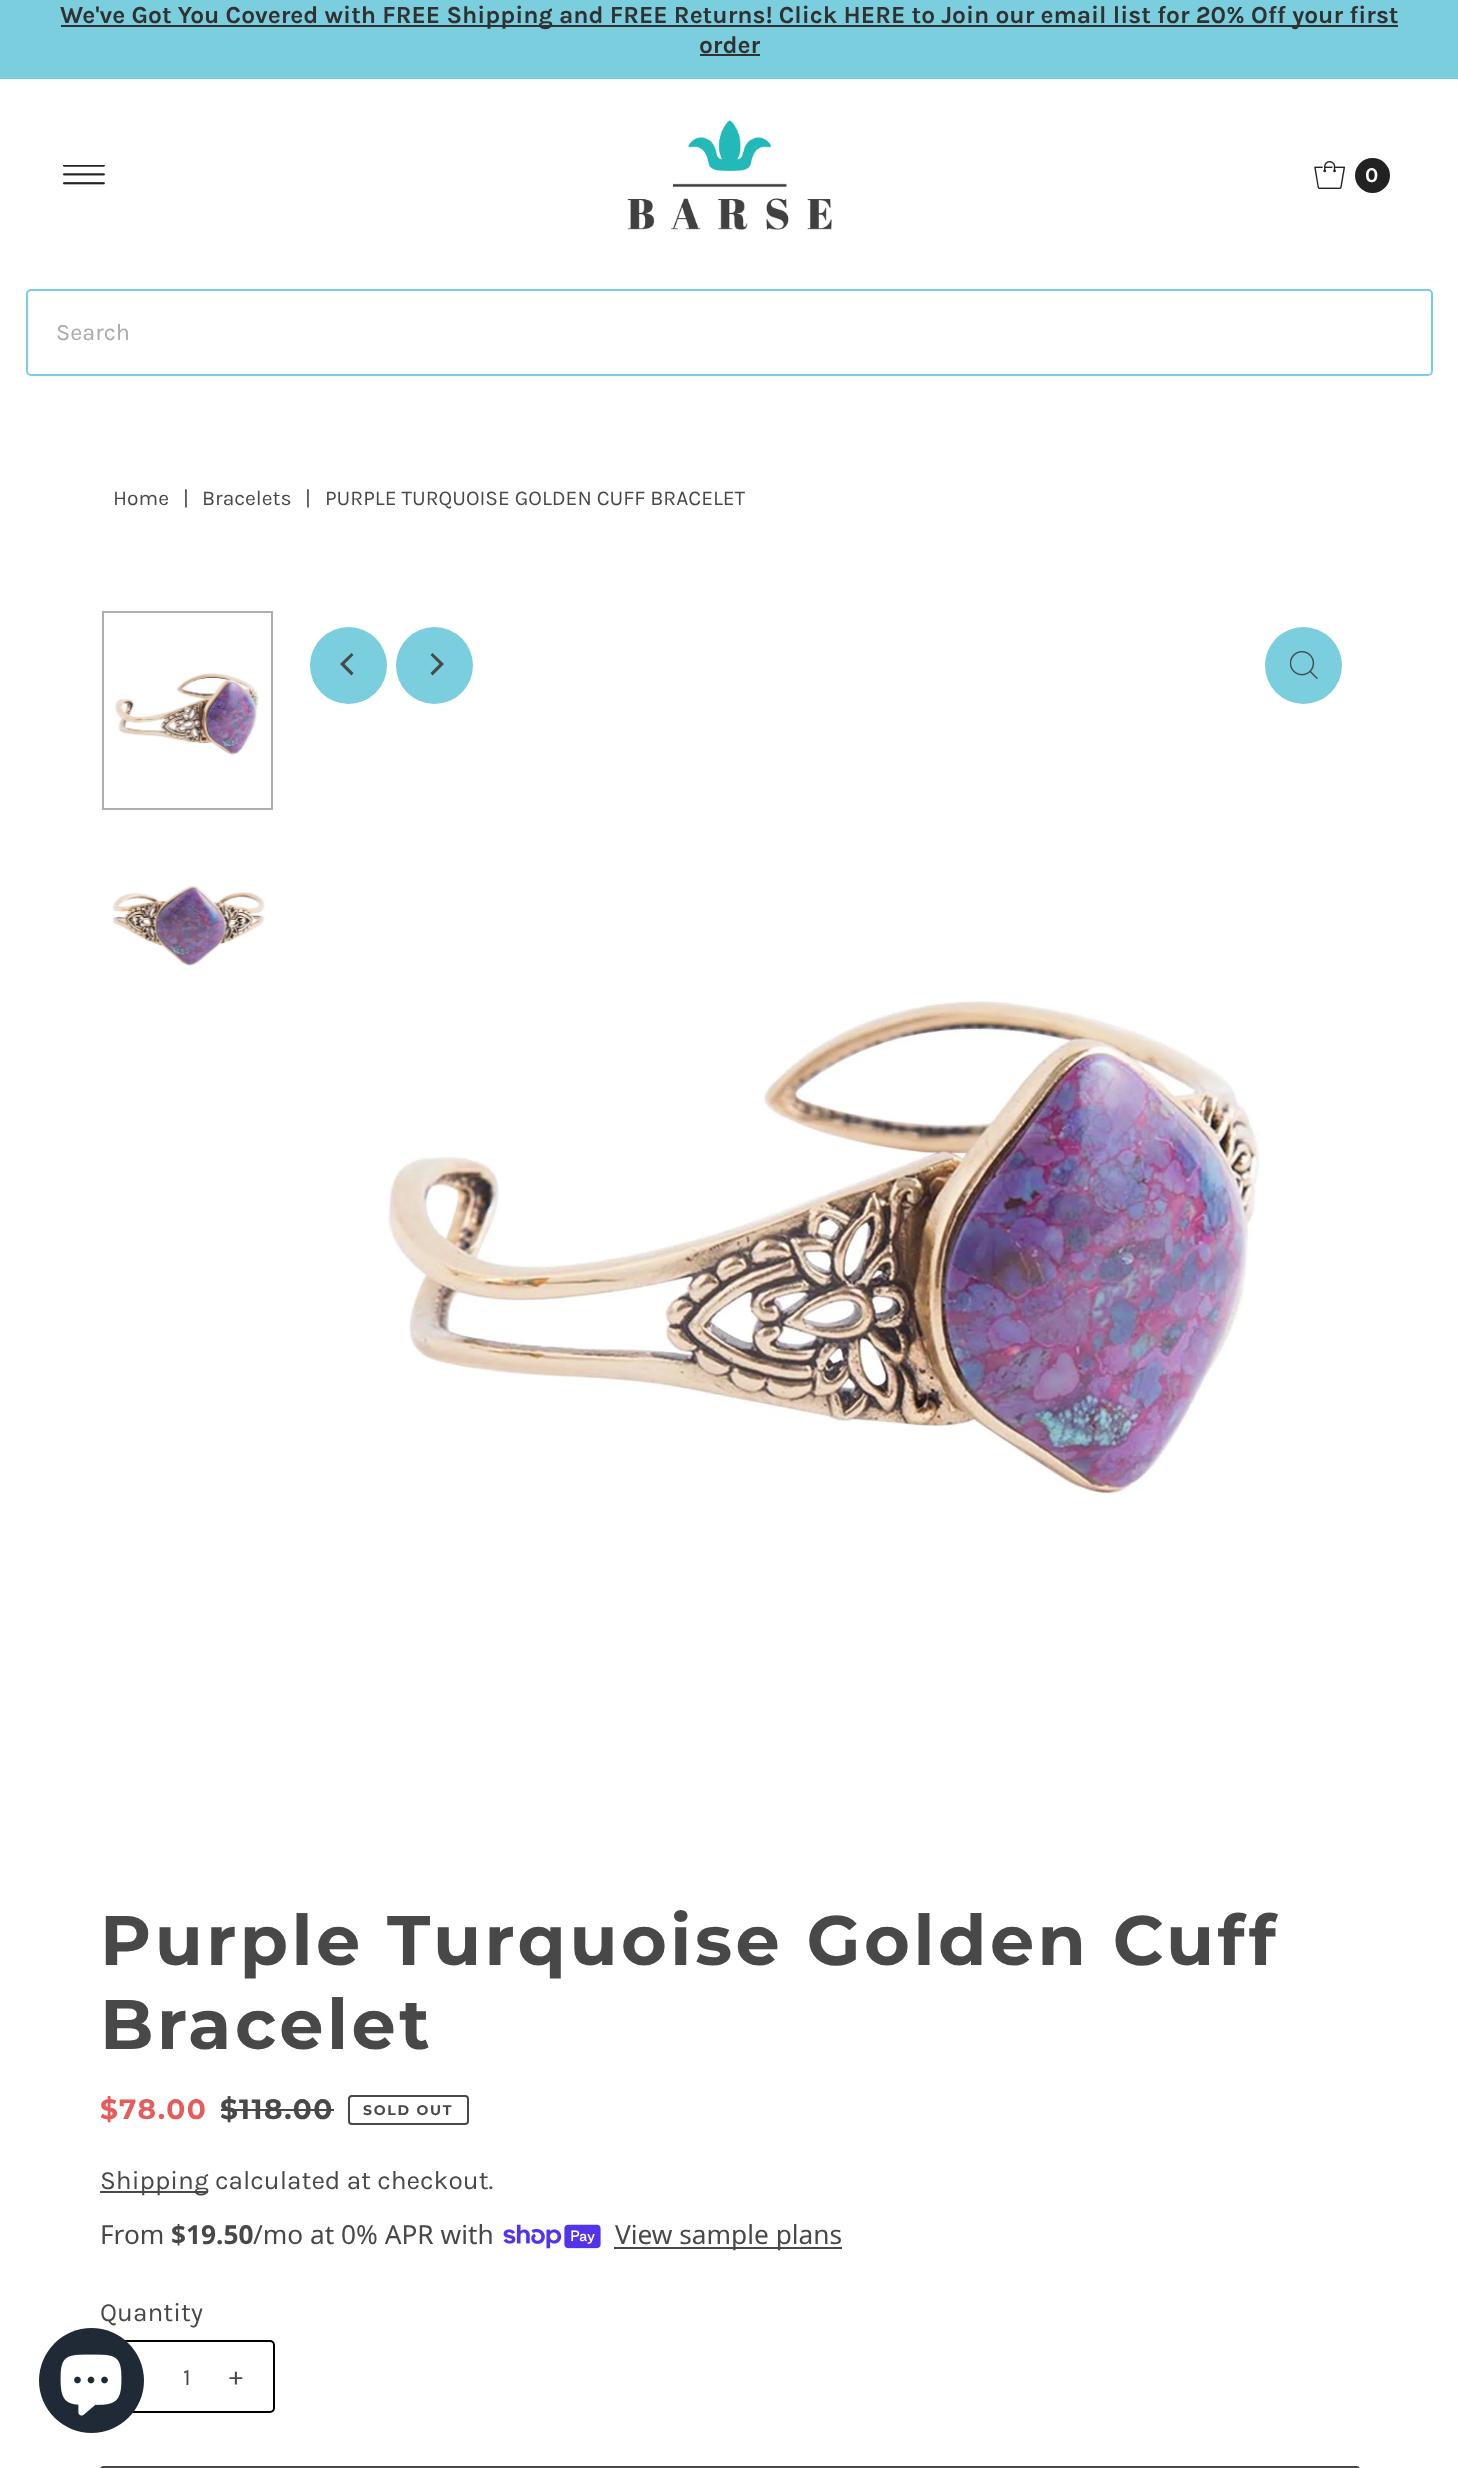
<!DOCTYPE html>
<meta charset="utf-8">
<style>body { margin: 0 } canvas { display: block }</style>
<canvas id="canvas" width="1458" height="2468"></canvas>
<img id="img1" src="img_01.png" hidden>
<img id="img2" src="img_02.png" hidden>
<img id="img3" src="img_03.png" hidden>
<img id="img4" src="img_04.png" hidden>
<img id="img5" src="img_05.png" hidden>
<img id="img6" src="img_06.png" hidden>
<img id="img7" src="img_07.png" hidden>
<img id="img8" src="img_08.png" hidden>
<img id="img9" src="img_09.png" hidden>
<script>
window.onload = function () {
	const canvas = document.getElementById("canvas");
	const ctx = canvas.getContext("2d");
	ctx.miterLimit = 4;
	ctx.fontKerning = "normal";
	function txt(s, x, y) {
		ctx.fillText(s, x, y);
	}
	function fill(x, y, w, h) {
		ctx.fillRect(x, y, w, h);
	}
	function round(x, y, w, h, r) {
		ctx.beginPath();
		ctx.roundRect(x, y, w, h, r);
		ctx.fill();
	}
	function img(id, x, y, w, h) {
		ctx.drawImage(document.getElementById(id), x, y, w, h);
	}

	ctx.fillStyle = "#FFFFFF";
	fill(0, 0, 1458, 2468);
	ctx.fillStyle = "#7BCEDE";
	fill(0, 0, 1458, 79);
	ctx.fillStyle = "#313131";
	fill(61, 25, 1337, 2);
	fill(700, 54, 60, 2);
	img("img1", 63, 165, 42, 20);
	img("img2", 627, 119, 205, 111);
	img("img3", 1314, 161, 31, 28);
	ctx.fillStyle = "#222222";
	ctx.beginPath();
	ctx.arc(1372.5, 175.5, 17.5, 0, Math.PI * 2);
	ctx.fill();
	ctx.beginPath();
	ctx.roundRect(27, 290, 1405, 85, 4);
	ctx.strokeStyle = "#7BCEDE";
	ctx.lineWidth = 2;
	ctx.stroke();
	img("img4", 115, 673, 144, 82);
	ctx.strokeStyle = "#AEAEAE";
	ctx.strokeRect(103, 612, 169, 197);
	img("img5", 112, 885, 153, 81);
	ctx.fillStyle = "#7BCEDE";
	ctx.beginPath();
	ctx.arc(348.5, 665.5, 38.5, 0, Math.PI * 2);
	ctx.fill();
	ctx.fillStyle = "#484848";
	ctx.beginPath();
	ctx.moveTo(340, 664);
	ctx.lineTo(351.5, 675.5);
	ctx.lineTo(353.5, 673);
	ctx.lineTo(344.5, 664);
	ctx.lineTo(353.5, 655);
	ctx.lineTo(351.5, 653);
	ctx.closePath();
	ctx.fill();
	ctx.fillStyle = "#7BCEDE";
	ctx.beginPath();
	ctx.arc(1303.5, 665.5, 38.5, 0, Math.PI * 2);
	ctx.fill();
	img("img6", 1290, 651, 28, 28);
	img("img7", 388, 1000, 872, 495);
	ctx.beginPath();
	ctx.arc(434.5, 665.5, 38.5, 0, Math.PI * 2);
	ctx.fill();
	ctx.fillStyle = "#484848";
	ctx.beginPath();
	ctx.moveTo(444, 664);
	ctx.lineTo(432.5, 653);
	ctx.lineTo(430.5, 655);
	ctx.lineTo(439.5, 664);
	ctx.lineTo(430.5, 673);
	ctx.lineTo(432.5, 675.5);
	ctx.closePath();
	ctx.fill();
	fill(221, 2109, 113, 2);
	ctx.beginPath();
	ctx.roundRect(349, 2096, 119, 28, 3);
	ctx.strokeStyle = "#484848";
	ctx.stroke();
	fill(100, 2191, 108, 2);
	img("img8", 503, 2224, 98, 25);
	fill(614, 2247, 228, 2);
	ctx.beginPath();
	ctx.roundRect(101, 2341, 173, 71, 4);
	ctx.strokeStyle = "#000000";
	ctx.stroke();
	round(100, 2466, 1260, 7, 5);
	ctx.fillStyle = "#202A36";
	ctx.beginPath();
	ctx.arc(91.5, 2380.5, 52.5, 0, Math.PI * 2);
	ctx.fill();
	img("img9", 60, 2354, 62, 62);
	ctx.font = "bold 24.5px Karla";
	ctx.fillStyle = "#313131";
	txt("We've Got You Covered with FREE Shipping and FREE Returns! Click HERE to Join our email list for 20% Off your first", 60, 23);
	txt("order", 699, 53);
	ctx.font = "bold 21px Karla";
	ctx.fillStyle = "#FFFFFF";
	txt("0", 1365, 182);
	ctx.font = "23.5px Karla";
	ctx.fillStyle = "#AAAAAA";
	txt("Search", 56, 340);
	ctx.font = "21px Karla";
	ctx.fillStyle = "#484848";
	txt("Home", 113, 505);
	txt("|", 183, 505);
	txt("Bracelets", 202, 505);
	txt("|", 305, 505);
	txt("PURPLE TURQUOISE GOLDEN CUFF BRACELET", 325, 505);
	ctx.letterSpacing = "3.5px";
	ctx.font = "bold 70px Montserrat";
	txt("Purple Turquoise Golden Cuff", 100, 1965);
	txt("Bracelet", 100, 2049);
	ctx.letterSpacing = "1.5px";
	ctx.font = "bold 28px Montserrat";
	ctx.fillStyle = "#E35D5D";
	txt("$78.00", 100, 2119);
	ctx.fillStyle = "#484848";
	txt("$118.00", 220, 2119);
	ctx.letterSpacing = "1.75px";
	ctx.font = "bold 14px Montserrat";
	txt("SOLD OUT", 363, 2115);
	ctx.letterSpacing = "0px";
	ctx.font = "26.25px Karla";
	txt("Shipping calculated at checkout.", 100, 2189);
	ctx.font = "26.25px Noto Sans";
	txt("From", 100, 2244);
	ctx.font = "bold 26.25px Noto Sans";
	txt("$19.50", 171, 2244);
	ctx.font = "26.25px Noto Sans";
	txt("/mo at 0% APR with", 253, 2244);
	txt("View sample plans", 615, 2244);
	ctx.font = "26.25px Karla";
	txt("Quantity", 100, 2321);
	ctx.font = "23.5px Karla";
	txt("1", 183, 2385);
	ctx.letterSpacing = "2px";
	ctx.font = "26.25px Karla";
	txt("+", 229, 2385);
};
</script>
